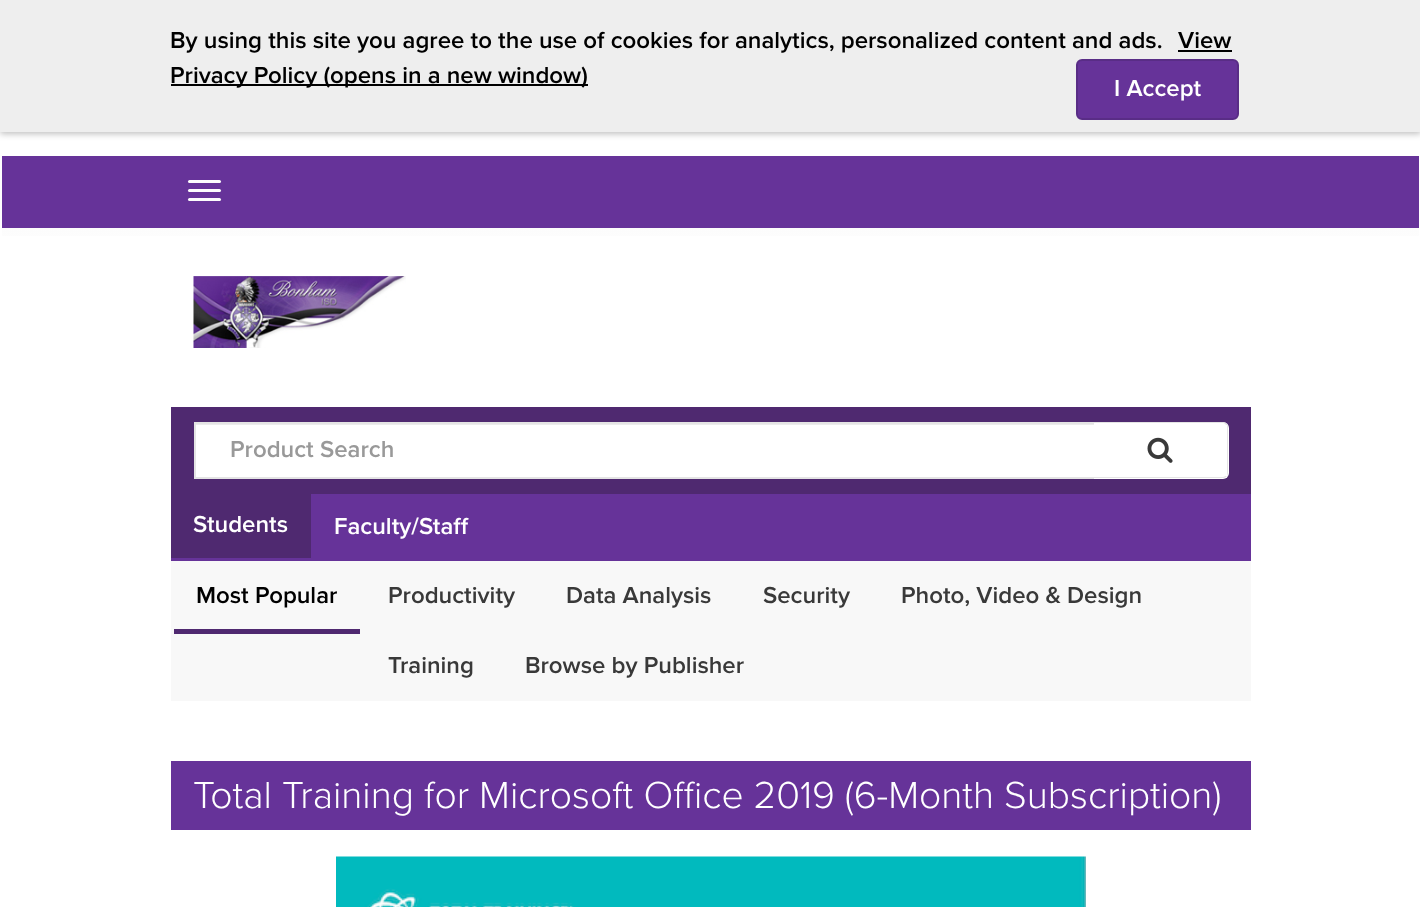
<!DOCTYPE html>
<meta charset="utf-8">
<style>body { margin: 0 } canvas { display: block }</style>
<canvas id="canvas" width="1420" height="907"></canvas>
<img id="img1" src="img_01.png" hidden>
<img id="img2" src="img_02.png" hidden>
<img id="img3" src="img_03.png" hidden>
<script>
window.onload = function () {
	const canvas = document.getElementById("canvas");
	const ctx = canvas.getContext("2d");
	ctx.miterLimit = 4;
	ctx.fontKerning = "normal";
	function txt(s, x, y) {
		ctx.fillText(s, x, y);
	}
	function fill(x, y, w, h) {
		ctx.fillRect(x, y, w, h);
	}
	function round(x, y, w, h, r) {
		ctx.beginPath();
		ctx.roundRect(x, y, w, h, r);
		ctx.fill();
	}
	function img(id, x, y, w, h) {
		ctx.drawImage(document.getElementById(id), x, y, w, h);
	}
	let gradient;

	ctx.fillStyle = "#FFFFFF";
	fill(0, 0, 1420, 907);
	ctx.fillStyle = "rgba(0, 0, 0, 0.25)";
	ctx.filter = "blur(3px)";
	ctx.beginPath();
	ctx.rect(0, 2, 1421, 132);
	ctx.fill();
	ctx.filter = "none";
	ctx.fillStyle = "#EEEEEE";
	fill(0, 0, 1420, 132);
	ctx.fillStyle = "#000000";
	fill(1178, 50, 54, 2);
	fill(171, 84, 417, 2);
	ctx.fillStyle = "#663399";
	ctx.beginPath();
	ctx.roundRect(1077, 60, 161, 59, 5);
	ctx.fill();
	ctx.strokeStyle = "#592D86";
	ctx.lineWidth = 2;
	ctx.stroke();
	fill(2, 156, 1417, 72);
	ctx.fillStyle = "#FCFCFC";
	round(188, 180, 33, 3, 1.5);
	round(188, 189, 33, 3, 1.5);
	round(188, 198, 33, 3, 1.5);
	gradient = ctx.createLinearGradient(710, 228, 710, 276);
	gradient.addColorStop(0, "#FCFCFC");
	gradient.addColorStop(1, "#FFFFFF");
	ctx.fillStyle = gradient;
	fill(2, 228, 1417, 8);
	img("img1", 193, 276, 213, 72);
	ctx.fillStyle = "#4F2970";
	fill(171, 407, 1080, 87);
	ctx.fillStyle = "#FFFFFF";
	fill(196, 425, 898, 52);
	ctx.fillStyle = "#ECECEC";
	fill(195, 424, 899, 1);
	ctx.fillStyle = "#E4E4E4";
	fill(194, 422, 900, 2);
	fill(194, 477, 900, 2);
	fill(194, 422, 2, 57);
	ctx.fillStyle = "#FFFFFF";
	ctx.beginPath();
	ctx.roundRect(1094, 422, 135, 57, [0, 6, 6, 0]);
	ctx.fill();
	ctx.fillStyle = "#E4E4E4";
	ctx.beginPath();
	ctx.moveTo(1094, 422);
	ctx.lineTo(1222, 422);
	ctx.bezierCurveTo(1226, 422, 1228, 424, 1228, 428);
	ctx.lineTo(1228, 472);
	ctx.bezierCurveTo(1228, 476, 1226, 478, 1222, 478);
	ctx.lineTo(1094, 478);
	ctx.closePath();
	ctx.moveTo(1094, 423);
	ctx.lineTo(1222, 423);
	ctx.bezierCurveTo(1225, 423, 1227, 425, 1227, 428);
	ctx.lineTo(1227, 472);
	ctx.bezierCurveTo(1227, 475, 1225, 477, 1222, 477);
	ctx.lineTo(1094, 477);
	ctx.closePath();
	ctx.fill("evenodd");
	ctx.fillStyle = "#FFFFFF";
	fill(1225, 425, 2, 51);
	img("img2", 1147, 437, 26, 26);
	ctx.fillStyle = "#663399";
	fill(171, 494, 1080, 67);
	ctx.fillStyle = "#4F2970";
	fill(171, 494, 140, 64);
	ctx.fillStyle = "#F8F8F8";
	fill(171, 561, 1080, 140);
	ctx.fillStyle = "#4F2970";
	fill(174, 629, 186, 5);
	ctx.fillStyle = "#663399";
	fill(171, 761, 1080, 69);
	img("img3", 336, 856, 750, 51);
	ctx.font = "600 24px Proxima Nova";
	ctx.fillStyle = "#000000";
	txt("By using this site you agree to the use of cookies for analytics, personalized content and ads.", 170, 48);
	txt("View", 1178, 48);
	txt("Privacy Policy (opens in a new window)", 170, 83);
	ctx.fillStyle = "#FFFFFF";
	txt("I Accept", 1114, 96);
	ctx.fillStyle = "#999999";
	txt("Product Search", 230, 457);
	ctx.fillStyle = "#FFFFFF";
	txt("Students", 193, 532);
	txt("Faculty/Staff", 334, 534);
	ctx.fillStyle = "#000000";
	txt("Most Popular", 196, 603);
	ctx.fillStyle = "#393939";
	txt("Productivity", 388, 603);
	txt("Data Analysis", 566, 603);
	txt("Security", 763, 603);
	txt("Photo, Video & Design", 901, 603);
	txt("Training", 388, 673);
	txt("Browse by Publisher", 525, 673);
	ctx.font = "300 39px Proxima Nova";
	ctx.fillStyle = "#FFFFFF";
	txt("Total Training for Microsoft Office 2019 (6-Month Subscription)", 193, 808);
};
</script>
